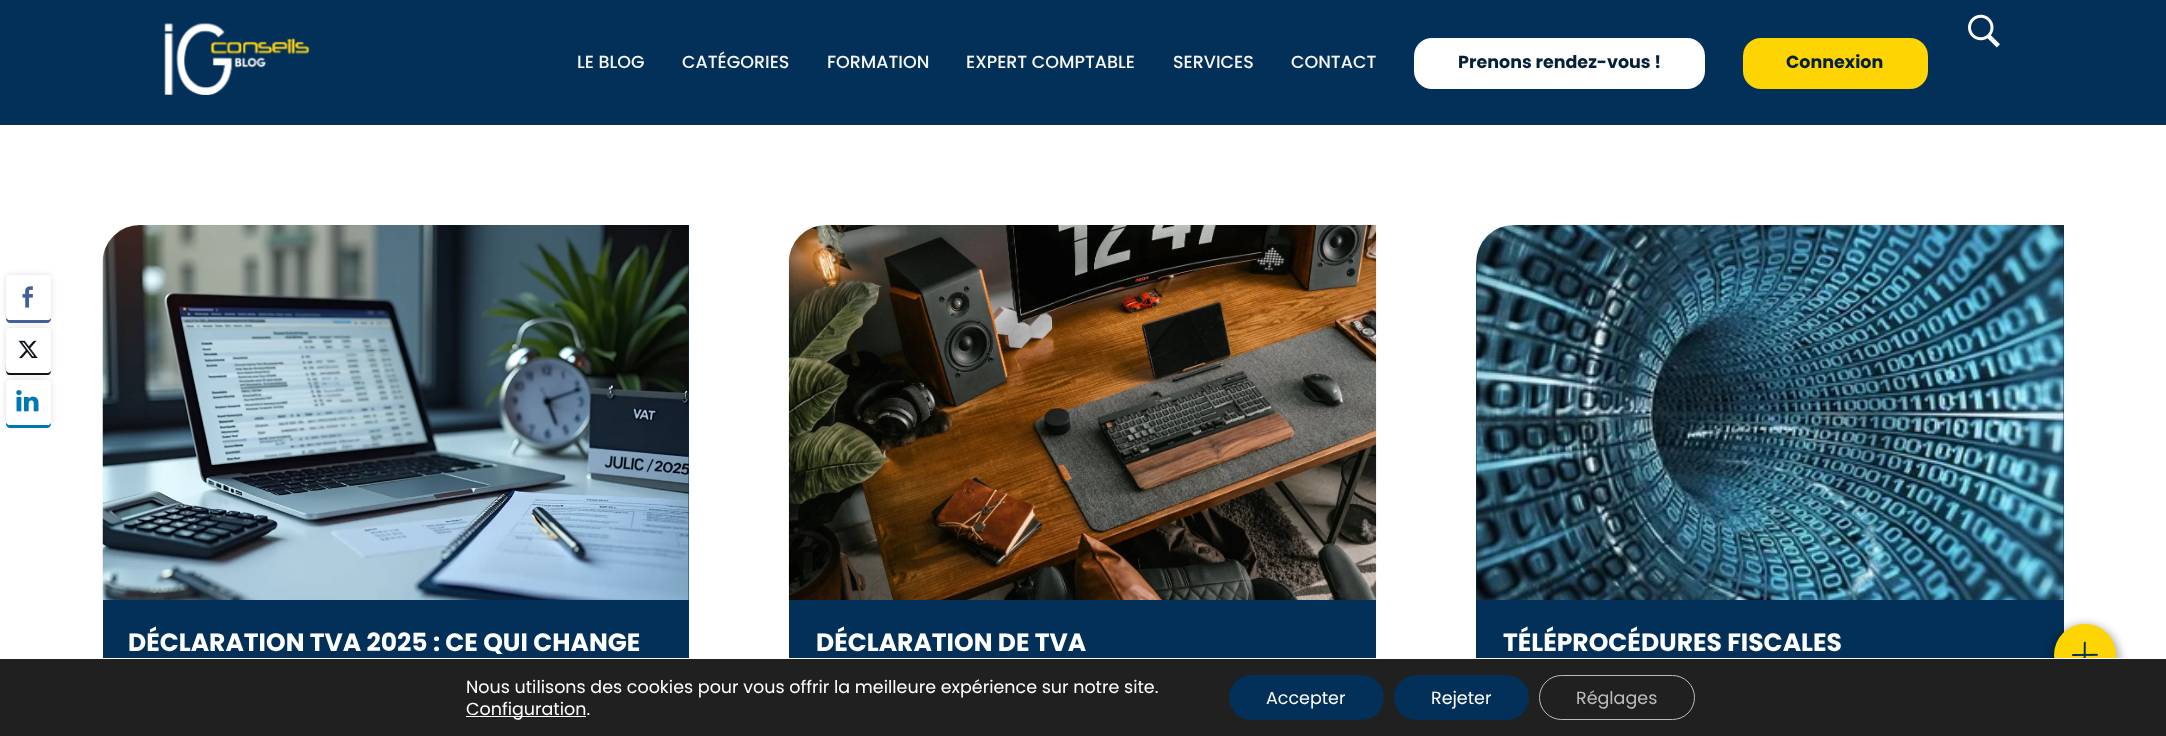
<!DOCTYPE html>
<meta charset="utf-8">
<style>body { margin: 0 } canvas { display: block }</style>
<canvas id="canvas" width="2166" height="736"></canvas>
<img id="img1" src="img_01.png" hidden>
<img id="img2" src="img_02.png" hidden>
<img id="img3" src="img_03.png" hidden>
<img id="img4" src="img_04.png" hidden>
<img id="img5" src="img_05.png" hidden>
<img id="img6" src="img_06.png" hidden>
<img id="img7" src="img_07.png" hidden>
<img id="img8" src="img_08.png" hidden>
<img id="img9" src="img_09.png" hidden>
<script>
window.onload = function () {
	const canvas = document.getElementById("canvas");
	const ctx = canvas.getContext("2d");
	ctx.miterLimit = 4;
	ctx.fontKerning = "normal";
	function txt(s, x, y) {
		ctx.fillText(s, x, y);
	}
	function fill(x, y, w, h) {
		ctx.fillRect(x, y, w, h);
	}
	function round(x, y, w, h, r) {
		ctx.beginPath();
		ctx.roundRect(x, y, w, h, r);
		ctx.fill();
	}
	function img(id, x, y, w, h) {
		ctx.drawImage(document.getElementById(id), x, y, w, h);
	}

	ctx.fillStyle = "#FFFFFF";
	fill(0, 0, 2166, 736);
	ctx.fillStyle = "#023059";
	fill(0, 0, 2166, 125);
	img("img1", 164, 23, 146, 72);
	img("img2", 1968, 14, 32, 34);
	ctx.fillStyle = "#FFFFFF";
	round(1414, 38, 291, 51, 18);
	ctx.fillStyle = "#FFD403";
	round(1743, 38, 185, 51, 18);
	ctx.fillStyle = "rgba(0, 0, 0, 0.13)";
	ctx.filter = "blur(3px)";
	ctx.beginPath();
	ctx.roundRect(6, 275, 45, 45, 4);
	ctx.fill();
	ctx.filter = "none";
	ctx.fillStyle = "#43609C";
	ctx.beginPath();
	ctx.moveTo(6, 281);
	ctx.lineTo(6, 319);
	ctx.bezierCurveTo(6, 321, 8, 323, 10, 323);
	ctx.lineTo(47, 323);
	ctx.bezierCurveTo(49, 323, 51, 321, 51, 319);
	ctx.lineTo(51, 318);
	ctx.bezierCurveTo(50, 319, 49, 320, 48, 320);
	ctx.lineTo(10, 320);
	ctx.bezierCurveTo(8, 320, 6, 318, 6, 316);
	ctx.closePath();
	ctx.fill();
	ctx.fillStyle = "#FFFFFF";
	round(6, 275, 45, 45, 4);
	img("img3", 22, 286, 11, 22);
	ctx.fillStyle = "rgba(0, 0, 0, 0.13)";
	ctx.filter = "blur(3px)";
	ctx.beginPath();
	ctx.roundRect(6, 328, 45, 45, 4);
	ctx.fill();
	ctx.filter = "none";
	ctx.fillStyle = "#0F1419";
	ctx.beginPath();
	ctx.moveTo(6, 333);
	ctx.lineTo(6, 365);
	ctx.bezierCurveTo(6, 368, 5, 374, 9, 375);
	ctx.lineTo(47, 375);
	ctx.bezierCurveTo(50, 375, 51, 373, 51, 370);
	ctx.bezierCurveTo(50, 372, 49, 372, 48, 372);
	ctx.lineTo(10, 372);
	ctx.bezierCurveTo(8, 372, 6, 371, 6, 369);
	ctx.closePath();
	ctx.fill();
	ctx.fillStyle = "#FFFFFF";
	round(6, 328, 45, 45, 4);
	img("img4", 18, 340, 20, 19);
	ctx.fillStyle = "rgba(0, 0, 0, 0.13)";
	ctx.filter = "blur(3px)";
	ctx.beginPath();
	ctx.roundRect(6, 380, 45, 45, 4);
	ctx.fill();
	ctx.filter = "none";
	ctx.fillStyle = "#0077B5";
	ctx.beginPath();
	ctx.moveTo(6, 386);
	ctx.lineTo(6, 424);
	ctx.bezierCurveTo(6, 426, 8, 428, 10, 428);
	ctx.lineTo(47, 428);
	ctx.bezierCurveTo(49, 428, 51, 426, 51, 424);
	ctx.lineTo(51, 423);
	ctx.bezierCurveTo(50, 424, 49, 425, 48, 425);
	ctx.lineTo(10, 425);
	ctx.bezierCurveTo(8, 425, 6, 423, 6, 421);
	ctx.closePath();
	ctx.fill();
	ctx.fillStyle = "#FFFFFF";
	round(6, 380, 45, 45, 4);
	img("img5", 16, 390, 23, 22);
	ctx.fillStyle = "#023059";
	ctx.beginPath();
	ctx.moveTo(147, 225);
	ctx.lineTo(689, 225);
	ctx.lineTo(689, 736);
	ctx.bezierCurveTo(689, 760.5, 669.5, 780, 645, 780);
	ctx.lineTo(103, 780);
	ctx.lineTo(103, 269);
	ctx.bezierCurveTo(103, 244.5, 122.5, 225, 147, 225);
	ctx.closePath();
	ctx.fill();
	img("img6", 102, 225, 587, 375);
	ctx.beginPath();
	ctx.moveTo(833, 225);
	ctx.lineTo(1376, 225);
	ctx.lineTo(1376, 736);
	ctx.bezierCurveTo(1376, 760.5, 1356.5, 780, 1332, 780);
	ctx.lineTo(789, 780);
	ctx.lineTo(789, 269);
	ctx.bezierCurveTo(789, 244.5, 808.5, 225, 833, 225);
	ctx.closePath();
	ctx.fill();
	img("img7", 788, 225, 589, 375);
	ctx.beginPath();
	ctx.moveTo(1520, 225);
	ctx.lineTo(2064, 225);
	ctx.lineTo(2064, 736);
	ctx.bezierCurveTo(2064, 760.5, 2044.5, 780, 2020, 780);
	ctx.lineTo(1476, 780);
	ctx.lineTo(1476, 269);
	ctx.bezierCurveTo(1476, 244.5, 1495.5, 225, 1520, 225);
	ctx.closePath();
	ctx.fill();
	img("img8", 1476, 225, 588, 375);
	ctx.fillStyle = "rgba(0, 0, 0, 0.3)";
	ctx.filter = "blur(4px)";
	ctx.beginPath();
	ctx.roundRect(2050, 624, 70, 70, 35);
	ctx.fill();
	ctx.filter = "none";
	ctx.fillStyle = "#FFD403";
	ctx.beginPath();
	ctx.arc(2085, 655, 31, 0, Math.PI * 2);
	ctx.fill();
	img("img9", 2071, 641, 27, 17);
	ctx.fillStyle = "#202020";
	fill(0, 659, 2166, 77);
	ctx.fillStyle = "#FFFFFF";
	fill(103, 658, 2024, 1);
	fill(466, 716, 120, 1);
	ctx.fillStyle = "#023059";
	round(1229, 675, 155, 45, 22.5);
	round(1394, 675, 135, 45, 22.5);
	ctx.beginPath();
	ctx.roundRect(1539.5, 675.5, 155, 44, 22);
	ctx.strokeStyle = "#BCBCBC";
	ctx.stroke();
	ctx.font = "500 17.5px Poppins";
	ctx.fillStyle = "#F6F6F6";
	txt("LE BLOG", 577, 68);
	txt("CATÉGORIES", 682, 68);
	txt("FORMATION", 827, 68);
	txt("EXPERT COMPTABLE", 966, 68);
	txt("SERVICES", 1173, 68);
	txt("CONTACT", 1291, 68);
	ctx.font = "bold 17.5px Poppins";
	ctx.fillStyle = "#052037";
	txt("Prenons rendez-vous !", 1458, 68);
	txt("Connexion", 1786, 68);
	ctx.font = "bold 25px Poppins";
	ctx.fillStyle = "#FFFFFF";
	txt("DÉCLARATION TVA 2025 : CE QUI CHANGE", 128, 651);
	txt("DÉCLARATION DE TVA", 816, 651);
	txt("TÉLÉPROCÉDURES FISCALES", 1503, 651);
	ctx.font = "17.5px Poppins";
	txt("Nous utilisons des cookies pour vous offrir la meilleure expérience sur notre site.", 466, 693);
	txt("Configuration.", 466, 715);
	txt("Accepter", 1266, 704);
	txt("Rejeter", 1431, 704);
	ctx.fillStyle = "#BCBCBC";
	txt("Réglages", 1576, 704);
};
</script>
